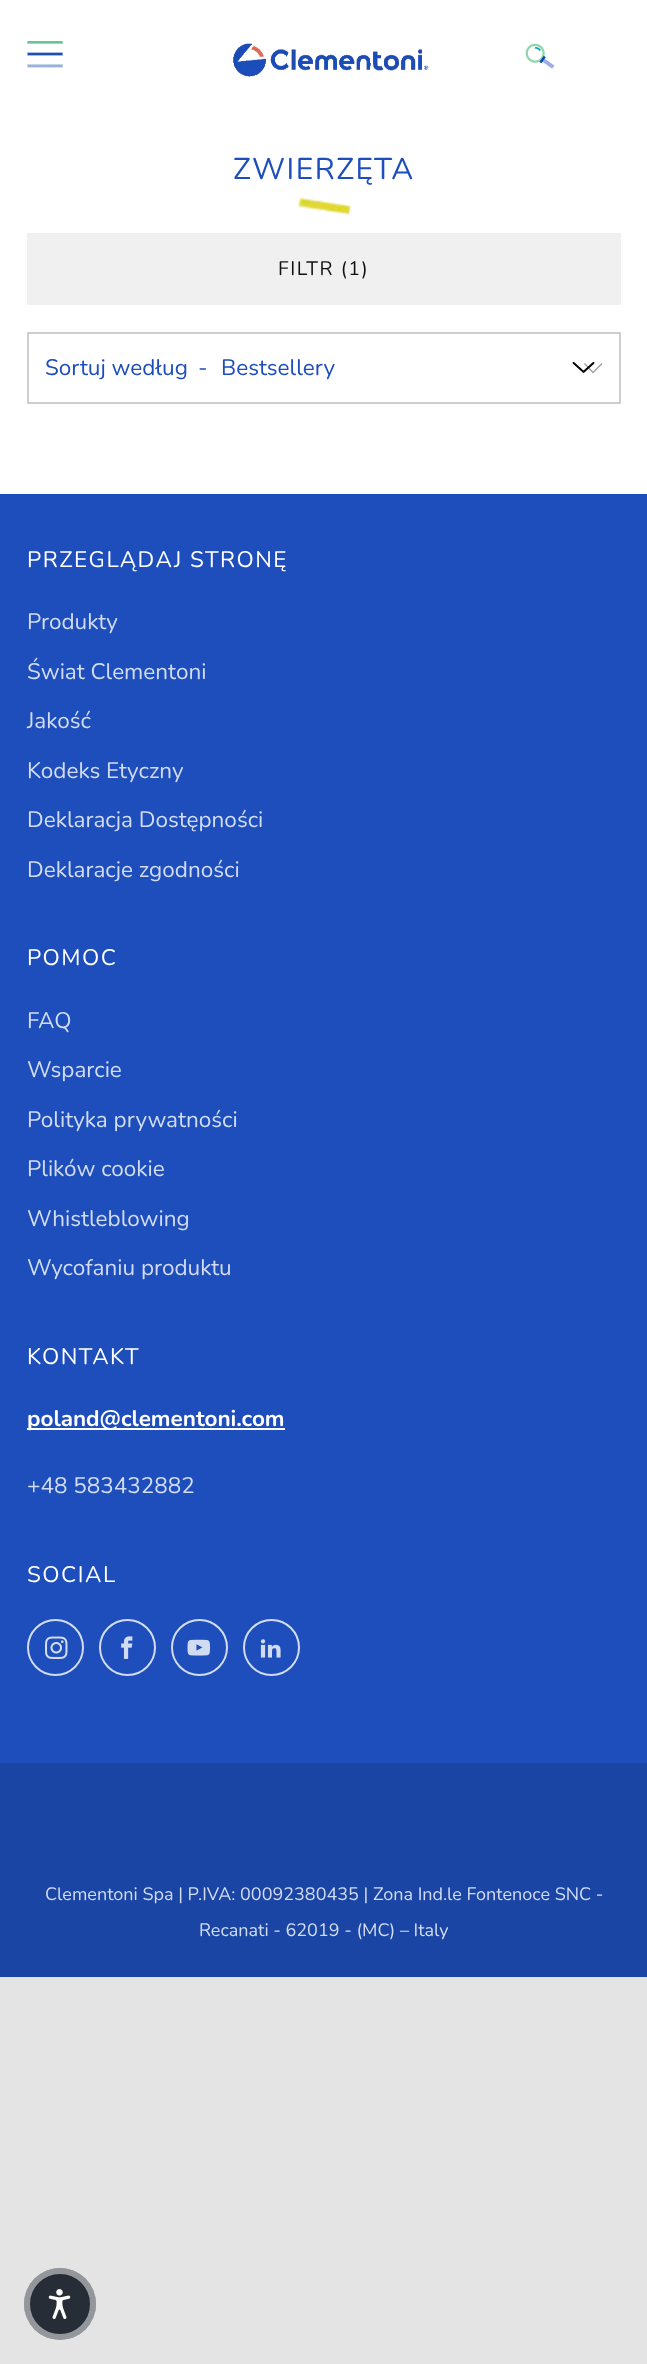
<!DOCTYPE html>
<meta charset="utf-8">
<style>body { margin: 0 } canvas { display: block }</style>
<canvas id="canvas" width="647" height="2364"></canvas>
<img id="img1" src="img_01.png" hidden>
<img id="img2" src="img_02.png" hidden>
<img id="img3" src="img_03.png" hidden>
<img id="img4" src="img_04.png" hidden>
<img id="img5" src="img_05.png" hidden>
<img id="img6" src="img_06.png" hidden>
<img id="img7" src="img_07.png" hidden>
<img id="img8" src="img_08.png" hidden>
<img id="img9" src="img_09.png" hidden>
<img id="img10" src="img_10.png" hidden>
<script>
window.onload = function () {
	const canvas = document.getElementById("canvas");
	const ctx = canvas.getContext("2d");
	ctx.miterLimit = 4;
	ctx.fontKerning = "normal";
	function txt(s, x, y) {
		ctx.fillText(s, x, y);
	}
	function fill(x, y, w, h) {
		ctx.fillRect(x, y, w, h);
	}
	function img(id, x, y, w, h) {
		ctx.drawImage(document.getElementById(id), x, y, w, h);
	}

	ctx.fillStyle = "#E4E4E4";
	fill(0, 0, 647, 2364);
	ctx.fillStyle = "#FFFFFF";
	fill(0, 0, 647, 494);
	img("img1", 27, 41, 36, 27);
	img("img2", 233, 43, 196, 34);
	img("img3", 525, 43, 30, 26);
	img("img4", 298, 197, 53, 18);
	ctx.fillStyle = "#F0F0F0";
	fill(27, 233, 594, 72);
	img("img5", 572, 362, 23, 11);
	ctx.strokeStyle = "#CFCFCF";
	ctx.lineWidth = 2;
	ctx.strokeRect(28, 333, 592, 70);
	ctx.fillStyle = "rgba(17, 17, 17, 0.4)";
	ctx.beginPath();
	ctx.moveTo(585, 363);
	ctx.lineTo(584, 364);
	ctx.lineTo(593, 373.5);
	ctx.lineTo(602.5, 364);
	ctx.lineTo(601.5, 363);
	ctx.lineTo(593, 371.5);
	ctx.closePath();
	ctx.fill();
	ctx.fillStyle = "#1D4EBB";
	fill(0, 494, 647, 1269);
	ctx.fillStyle = "#FFFFFF";
	fill(27, 1428, 258, 2);
	ctx.beginPath();
	ctx.arc(55.5, 1647.5, 27.5, 0, Math.PI * 2);
	ctx.strokeStyle = "#D2DCF1";
	ctx.stroke();
	img("img6", 45, 1636, 23, 23);
	ctx.beginPath();
	ctx.arc(127.5, 1647.5, 27.5, 0, Math.PI * 2);
	ctx.stroke();
	img("img7", 121, 1636, 12, 23);
	ctx.beginPath();
	ctx.arc(199.5, 1647.5, 27.5, 0, Math.PI * 2);
	ctx.stroke();
	img("img8", 187, 1639, 23, 17);
	ctx.beginPath();
	ctx.arc(271.5, 1647.5, 27.5, 0, Math.PI * 2);
	ctx.stroke();
	img("img9", 260, 1639, 21, 19);
	ctx.fillStyle = "#1A45A5";
	fill(0, 1763, 647, 214);
	ctx.fillStyle = "#272D36";
	ctx.beginPath();
	ctx.arc(60, 2304, 36, 0, Math.PI * 2);
	ctx.fill();
	ctx.beginPath();
	ctx.arc(60, 2304, 33, 0, Math.PI * 2);
	ctx.strokeStyle = "rgba(255, 255, 255, 0.5)";
	ctx.lineWidth = 6;
	ctx.stroke();
	img("img10", 48, 2289, 23, 30);
	ctx.letterSpacing = "1.5px";
	ctx.font = "30px Nunito";
	ctx.fillStyle = "#1D4EBB";
	txt("ZWIERZĘTA", 233, 179);
	ctx.font = "19.5px Nunito";
	ctx.fillStyle = "#111111";
	txt("FILTR (1)", 278, 275);
	ctx.letterSpacing = "0px";
	ctx.font = "22.5px Nunito";
	ctx.fillStyle = "#1D4EBB";
	txt("Sortuj według", 45, 375);
	txt("-", 198, 375);
	txt("Bestsellery", 221, 375);
	ctx.letterSpacing = "1.5px";
	ctx.fillStyle = "#FFFFFF";
	txt("PRZEGLĄDAJ STRONĘ", 27, 567);
	ctx.letterSpacing = "0px";
	ctx.fillStyle = "#D2DCF1";
	txt("Produkty", 27, 629);
	txt("Świat Clementoni", 27, 679);
	txt("Jakość", 27, 728);
	txt("Kodeks Etyczny", 27, 778);
	txt("Deklaracja Dostępności", 27, 827);
	txt("Deklaracje zgodności", 27, 877);
	ctx.letterSpacing = "1.5px";
	ctx.fillStyle = "#FFFFFF";
	txt("POMOC", 27, 965);
	ctx.letterSpacing = "0px";
	ctx.fillStyle = "#D2DCF1";
	txt("FAQ", 27, 1028);
	txt("Wsparcie", 27, 1077);
	txt("Polityka prywatności", 27, 1127);
	txt("Plików cookie", 27, 1176);
	txt("Whistleblowing", 27, 1226);
	txt("Wycofaniu produktu", 27, 1275);
	ctx.letterSpacing = "1.5px";
	ctx.fillStyle = "#FFFFFF";
	txt("KONTAKT", 27, 1364);
	ctx.letterSpacing = "0px";
	ctx.font = "bold 22.5px Nunito";
	txt("poland@clementoni.com", 27, 1426);
	ctx.font = "22.5px Nunito";
	ctx.fillStyle = "#D2DCF1";
	txt("+48 583432882", 27, 1493);
	ctx.letterSpacing = "1.5px";
	ctx.fillStyle = "#FFFFFF";
	txt("SOCIAL", 27, 1582);
	ctx.letterSpacing = "0px";
	ctx.font = "18px Nunito";
	ctx.fillStyle = "#D2DCF1";
	txt("Clementoni Spa | P.IVA: 00092380435 | Zona Ind.le Fontenoce SNC -", 45, 1900);
	txt("Recanati - 62019 - (MC) – Italy", 199, 1936);
};
</script>
